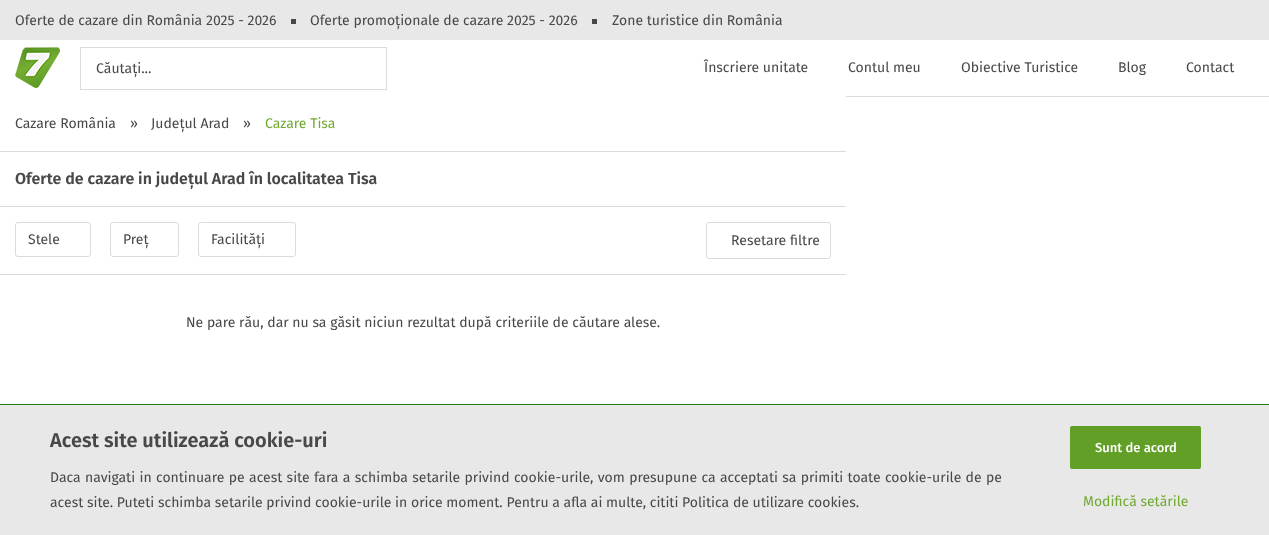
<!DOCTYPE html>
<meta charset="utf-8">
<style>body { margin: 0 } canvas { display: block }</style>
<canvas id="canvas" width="1269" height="535"></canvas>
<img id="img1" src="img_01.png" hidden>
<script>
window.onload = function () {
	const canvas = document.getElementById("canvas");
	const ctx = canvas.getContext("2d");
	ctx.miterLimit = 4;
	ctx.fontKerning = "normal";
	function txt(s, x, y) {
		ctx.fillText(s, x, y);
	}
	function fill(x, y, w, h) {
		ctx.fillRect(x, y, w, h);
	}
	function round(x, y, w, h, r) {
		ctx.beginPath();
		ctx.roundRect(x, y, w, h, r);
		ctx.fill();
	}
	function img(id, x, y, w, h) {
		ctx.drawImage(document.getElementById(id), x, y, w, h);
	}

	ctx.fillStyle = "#FFFFFF";
	fill(0, 0, 1269, 535);
	ctx.fillStyle = "#E8E8E8";
	fill(0, 0, 1269, 40);
	ctx.fillStyle = "#484848";
	fill(291, 19, 5, 5);
	fill(592, 19, 5, 5);
	ctx.fillStyle = "#DBDBDB";
	fill(846, 96, 423, 1);
	img("img1", 15, 47, 45, 41);
	ctx.strokeStyle = "#DBDBDB";
	ctx.strokeRect(80.5, 47.5, 306, 42);
	fill(0, 151, 846, 1);
	fill(0, 206, 846, 1);
	fill(0, 274, 846, 1);
	ctx.beginPath();
	ctx.roundRect(15.5, 222.5, 75, 34, 2.5);
	ctx.stroke();
	ctx.beginPath();
	ctx.roundRect(110.5, 222.5, 68, 34, 2.5);
	ctx.stroke();
	ctx.beginPath();
	ctx.roundRect(198.5, 222.5, 97, 34, 2.5);
	ctx.stroke();
	ctx.beginPath();
	ctx.roundRect(706.5, 222.5, 124, 36, 2.5);
	ctx.stroke();
	ctx.fillStyle = "#E8E8E8";
	fill(0, 405, 1269, 130);
	ctx.fillStyle = "#2B7910";
	fill(0, 404, 1269, 1);
	ctx.fillStyle = "#619F27";
	round(1070, 426, 131, 43, 2);
	ctx.font = "14px Fira Sans";
	ctx.fillStyle = "#484848";
	txt("Oferte de cazare din România 2025 - 2026", 15, 25);
	txt("Oferte promoționale de cazare 2025 - 2026", 310, 25);
	txt("Zone turistice din România", 612, 25);
	txt("Căutați...", 96, 73);
	txt("Înscriere unitate", 704, 72);
	txt("Contul meu", 848, 72);
	txt("Obiective Turistice", 961, 72);
	txt("Blog", 1118, 72);
	txt("Contact", 1186, 72);
	txt("Cazare România", 15, 128);
	txt("»", 130, 128);
	txt("Județul Arad", 151, 128);
	txt("»", 243, 128);
	ctx.fillStyle = "#72A931";
	txt("Cazare Tisa", 265, 128);
	ctx.font = "600 16px Fira Sans";
	ctx.fillStyle = "#484848";
	txt("Oferte de cazare in județul Arad în localitatea Tisa", 15, 184);
	ctx.font = "14px Fira Sans";
	txt("Stele", 28, 244);
	txt("Preț", 123, 244);
	txt("Facilități", 211, 244);
	txt("Resetare filtre", 731, 245);
	txt("Ne pare rău, dar nu sa găsit niciun rezultat după criteriile de căutare alese.", 186, 327);
	ctx.font = "600 20px Fira Sans";
	txt("Acest site utilizează cookie-uri", 50, 447);
	ctx.wordSpacing = "0.65px";
	ctx.font = "14px Fira Sans";
	txt("Daca navigati in continuare pe acest site fara a schimba setarile privind cookie-urile, vom presupune ca acceptati sa primiti toate cookie-urile de pe", 50, 482);
	ctx.wordSpacing = "0px";
	txt("acest site. Puteti schimba setarile privind cookie-urile in orice moment. Pentru a afla ai multe, cititi Politica de utilizare cookies.", 50, 507);
	ctx.font = "500 13px Fira Sans";
	ctx.fillStyle = "#FFFFFF";
	txt("Sunt de acord", 1095, 452);
	ctx.font = "14px Fira Sans";
	ctx.fillStyle = "#72A931";
	txt("Modifică setările", 1083, 506);
};
</script>
